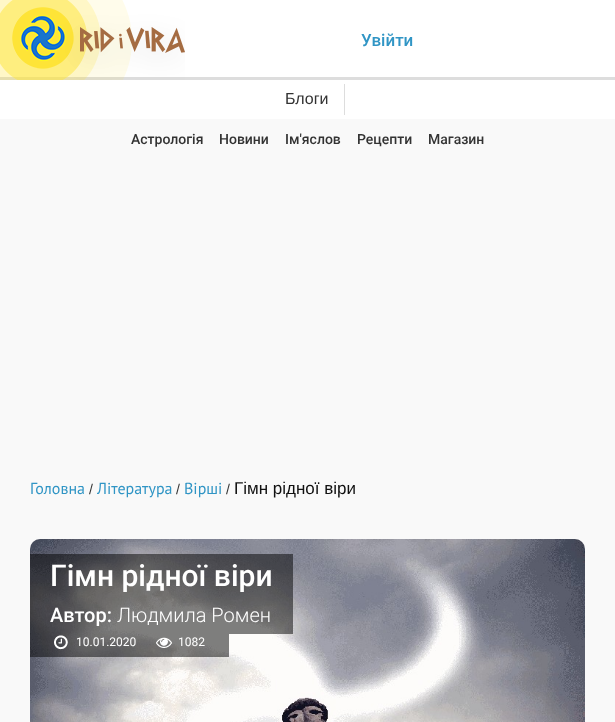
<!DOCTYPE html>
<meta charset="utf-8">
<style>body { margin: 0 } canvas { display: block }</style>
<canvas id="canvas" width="615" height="722"></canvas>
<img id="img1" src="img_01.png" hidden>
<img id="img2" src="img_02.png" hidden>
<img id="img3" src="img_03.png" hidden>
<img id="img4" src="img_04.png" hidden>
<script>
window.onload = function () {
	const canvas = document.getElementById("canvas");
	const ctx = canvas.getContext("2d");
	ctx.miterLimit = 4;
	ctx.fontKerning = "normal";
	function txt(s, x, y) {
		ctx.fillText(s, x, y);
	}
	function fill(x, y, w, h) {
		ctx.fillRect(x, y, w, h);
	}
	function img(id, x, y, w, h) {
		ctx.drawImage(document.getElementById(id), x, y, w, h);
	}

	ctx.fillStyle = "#F9F9F9";
	fill(0, 0, 615, 722);
	ctx.fillStyle = "#FFFFFF";
	fill(0, 0, 615, 77);
	ctx.fillStyle = "#DDDDDD";
	fill(0, 77, 615, 3);
	img("img1", 0, 0, 185, 80);
	ctx.fillStyle = "#FFFFFF";
	fill(0, 80, 615, 39);
	ctx.fillStyle = "#DDDDDD";
	fill(344, 84, 1, 31);
	img("img2", 30, 539, 555, 183);
	ctx.fillStyle = "rgba(0, 0, 0, 0.5)";
	fill(30, 554, 263, 43);
	fill(30, 597, 263, 37);
	fill(30, 634, 199, 23);
	img("img3", 54, 635, 14, 15);
	img("img4", 156, 637, 16, 11);
	ctx.font = "500 17px Roboto";
	ctx.fillStyle = "#3095C5";
	txt("Увійти", 361, 46);
	ctx.font = "16px Liberation Sans";
	ctx.fillStyle = "#333333";
	txt("Блоги", 285, 104);
	ctx.font = "500 14px Roboto";
	txt("Астрологія", 131, 144);
	txt("Новини", 219, 144);
	txt("Ім'яслов", 285, 144);
	txt("Рецепти", 357, 144);
	txt("Магазин", 428, 144);
	ctx.font = "16px PT Sans";
	ctx.fillStyle = "#3095C5";
	txt("Головна", 30, 494);
	ctx.font = "14px Liberation Sans";
	ctx.fillStyle = "#333333";
	txt("/", 89, 494);
	ctx.font = "16px PT Sans";
	ctx.fillStyle = "#3095C5";
	txt("Література", 97, 494);
	ctx.font = "14px Liberation Sans";
	ctx.fillStyle = "#333333";
	txt("/", 176, 494);
	ctx.font = "16px PT Sans";
	ctx.fillStyle = "#3095C5";
	txt("Вірші", 184, 494);
	ctx.font = "14px Liberation Sans";
	ctx.fillStyle = "#333333";
	txt("/", 226, 494);
	ctx.font = "17px Liberation Sans";
	ctx.fillStyle = "#111111";
	txt("Гімн рідної віри", 234, 494);
	ctx.font = "500 30px Roboto";
	ctx.fillStyle = "#FFFFFF";
	txt("Гімн рідної віри", 50, 586);
	ctx.font = "500 20px Roboto";
	txt("Автор:", 50, 622);
	ctx.font = "300 20px Roboto";
	txt("Людмила Ромен", 117, 622);
	ctx.font = "12px Roboto";
	txt("10.01.2020", 76, 646);
	txt("1082", 178, 646);
};
</script>
